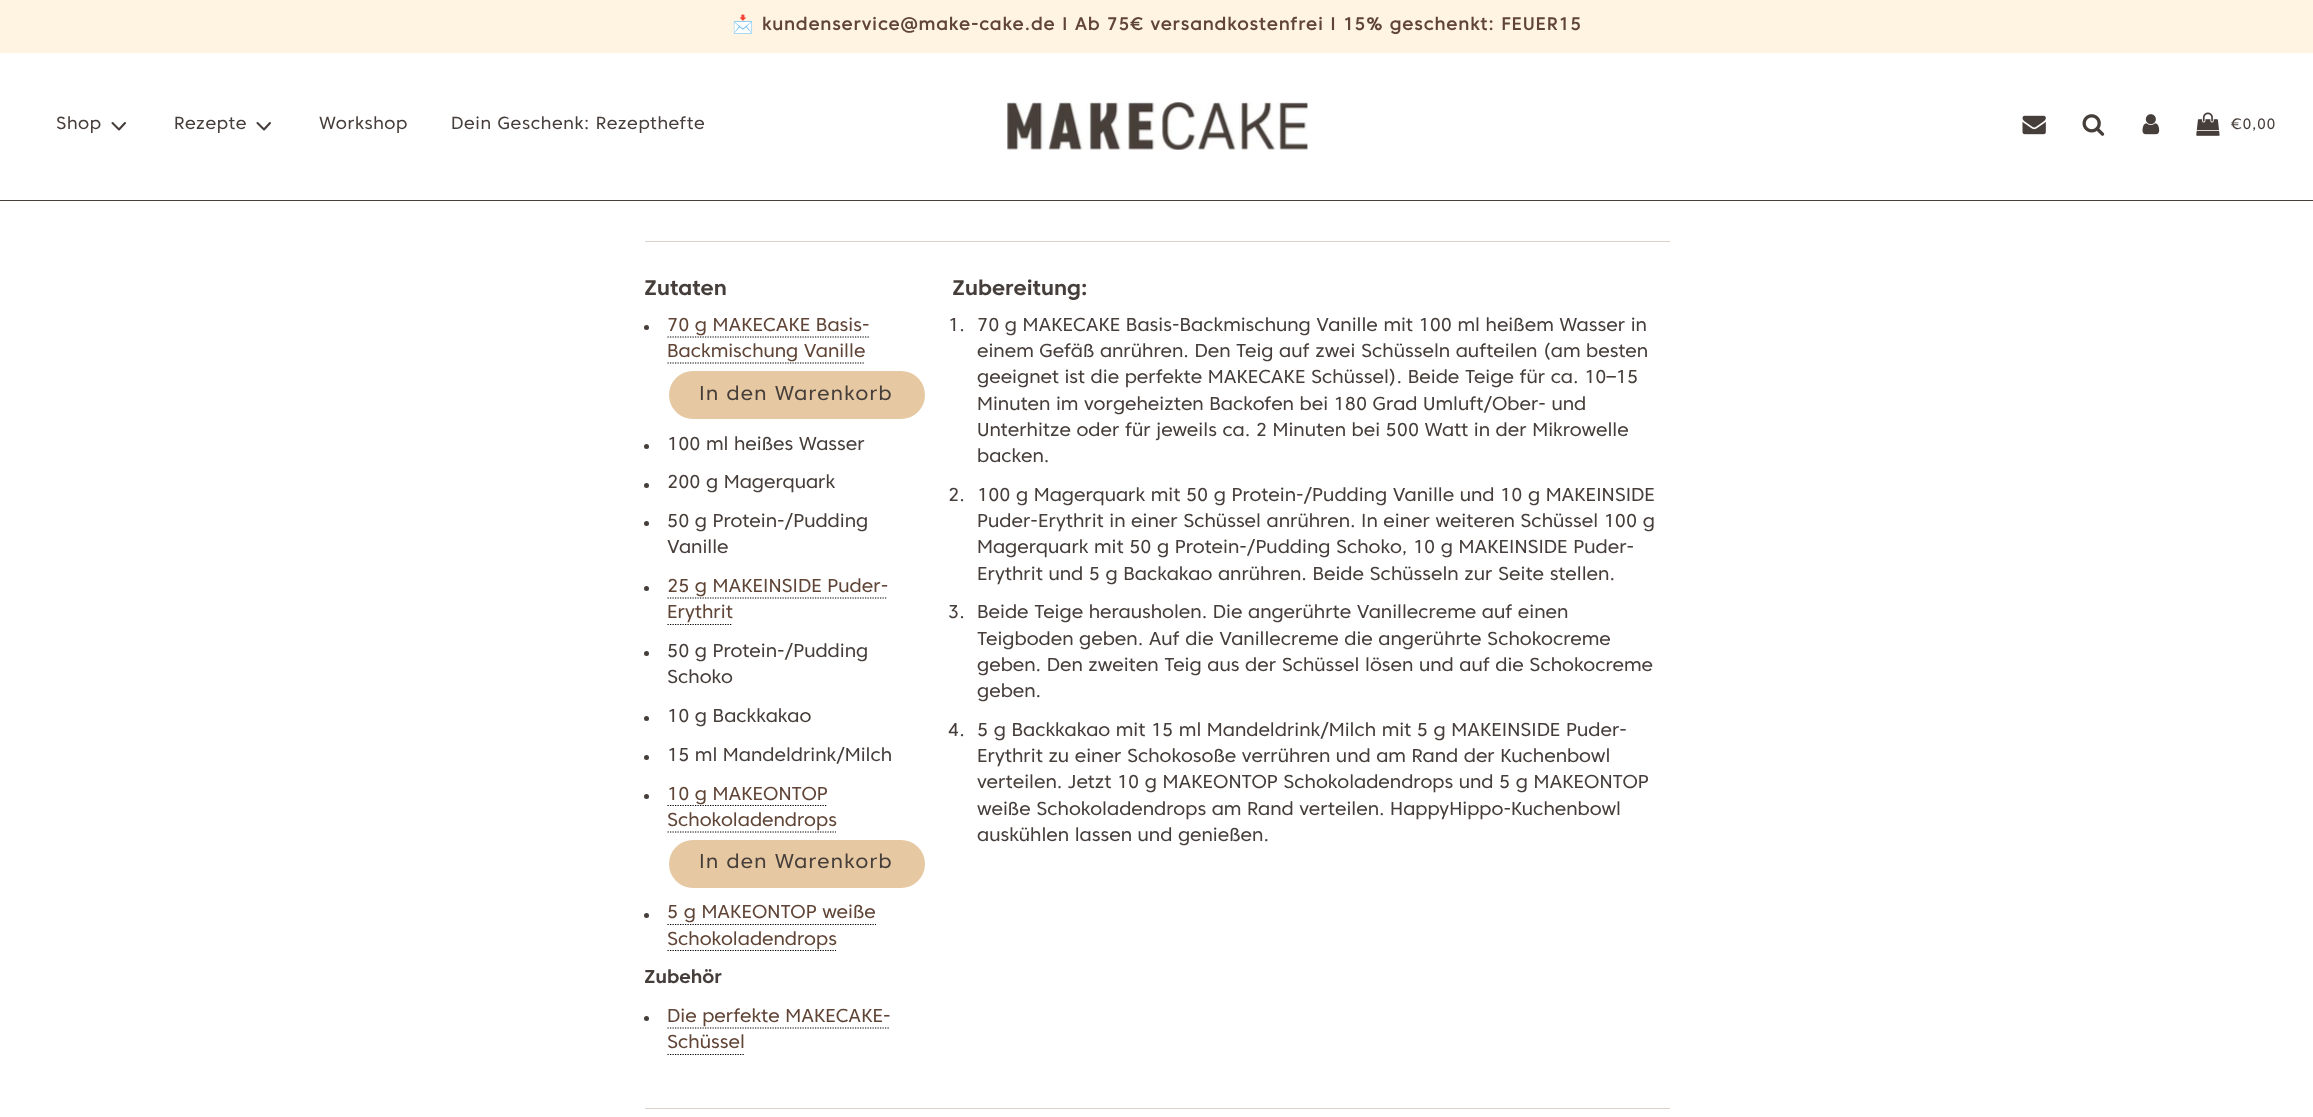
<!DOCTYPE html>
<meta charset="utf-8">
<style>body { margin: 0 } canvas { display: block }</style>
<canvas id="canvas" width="2313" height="1117"></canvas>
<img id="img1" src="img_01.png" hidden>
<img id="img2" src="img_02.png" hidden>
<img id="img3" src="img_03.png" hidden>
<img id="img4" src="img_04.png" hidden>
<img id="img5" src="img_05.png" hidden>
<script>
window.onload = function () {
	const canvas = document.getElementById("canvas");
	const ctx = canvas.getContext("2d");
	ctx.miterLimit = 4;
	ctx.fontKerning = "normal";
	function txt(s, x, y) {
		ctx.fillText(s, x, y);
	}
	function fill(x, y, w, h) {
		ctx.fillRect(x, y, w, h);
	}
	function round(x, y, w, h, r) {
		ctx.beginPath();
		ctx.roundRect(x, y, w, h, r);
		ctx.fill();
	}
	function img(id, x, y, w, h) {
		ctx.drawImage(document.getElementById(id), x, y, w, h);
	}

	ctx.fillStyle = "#FFFFFF";
	fill(0, 0, 2313, 1117);
	ctx.fillStyle = "#FFF3E2";
	fill(0, 0, 2313, 53);
	ctx.fillStyle = "#463E3A";
	fill(0, 200, 2313, 1);
	ctx.beginPath();
	ctx.moveTo(112.5, 123);
	ctx.lineTo(119, 129.5);
	ctx.lineTo(125, 123);
	ctx.strokeStyle = "#463E3A";
	ctx.lineWidth = 2.1;
	ctx.lineCap = "round";
	ctx.lineJoin = "round";
	ctx.stroke();
	ctx.beginPath();
	ctx.moveTo(257.5, 123);
	ctx.lineTo(264, 129.5);
	ctx.lineTo(270, 123);
	ctx.stroke();
	img("img1", 1007, 102, 301, 48);
	img("img2", 2022, 115, 24, 20);
	img("img3", 2082, 114, 23, 22);
	img("img4", 2142, 114, 18, 21);
	img("img5", 2196, 112, 24, 24);
	ctx.fillStyle = "#DDD2CA";
	fill(645, 241, 1025, 1);
	ctx.fillStyle = "#463E3A";
	ctx.beginPath();
	ctx.arc(646.5, 327.5, 2.5, 0, Math.PI * 2);
	ctx.fill();
	ctx.beginPath();
	ctx.moveTo(667.5, 337);
	ctx.lineTo(869, 337);
	ctx.strokeStyle = "#000000";
	ctx.lineWidth = 1.2;
	ctx.lineCap = "butt";
	ctx.lineJoin = "miter";
	ctx.setLineDash([1.25, 1.25]);
	ctx.stroke();
	ctx.beginPath();
	ctx.moveTo(667.5, 363);
	ctx.lineTo(865, 363);
	ctx.stroke();
	ctx.fillStyle = "#E6C8A2";
	round(669, 371, 256, 48, 24);
	ctx.fillStyle = "#463E3A";
	ctx.beginPath();
	ctx.arc(646.5, 446.5, 2.5, 0, Math.PI * 2);
	ctx.fill();
	ctx.beginPath();
	ctx.arc(646.5, 485.5, 2.5, 0, Math.PI * 2);
	ctx.fill();
	ctx.beginPath();
	ctx.arc(646.5, 523.5, 2.5, 0, Math.PI * 2);
	ctx.fill();
	ctx.beginPath();
	ctx.arc(646.5, 588.5, 2.5, 0, Math.PI * 2);
	ctx.fill();
	ctx.beginPath();
	ctx.moveTo(667.5, 598);
	ctx.lineTo(887.5, 598);
	ctx.stroke();
	ctx.beginPath();
	ctx.moveTo(667.5, 624.5);
	ctx.lineTo(732.5, 624.5);
	ctx.stroke();
	ctx.beginPath();
	ctx.arc(646.5, 653.5, 2.5, 0, Math.PI * 2);
	ctx.fill();
	ctx.beginPath();
	ctx.arc(646.5, 718.5, 2.5, 0, Math.PI * 2);
	ctx.fill();
	ctx.beginPath();
	ctx.arc(646.5, 757.5, 2.5, 0, Math.PI * 2);
	ctx.fill();
	ctx.beginPath();
	ctx.arc(646.5, 796.5, 2.5, 0, Math.PI * 2);
	ctx.fill();
	ctx.beginPath();
	ctx.moveTo(667.5, 805.5);
	ctx.lineTo(827.5, 805.5);
	ctx.stroke();
	ctx.beginPath();
	ctx.moveTo(667.5, 832);
	ctx.lineTo(836, 832);
	ctx.stroke();
	ctx.fillStyle = "#E6C8A2";
	round(669, 840, 256, 48, 24);
	ctx.fillStyle = "#463E3A";
	ctx.beginPath();
	ctx.arc(646.5, 915.5, 2.5, 0, Math.PI * 2);
	ctx.fill();
	ctx.beginPath();
	ctx.moveTo(667.5, 924.5);
	ctx.lineTo(876, 924.5);
	ctx.stroke();
	ctx.beginPath();
	ctx.moveTo(667.5, 950.5);
	ctx.lineTo(836, 950.5);
	ctx.stroke();
	ctx.beginPath();
	ctx.arc(646.5, 1018.5, 2.5, 0, Math.PI * 2);
	ctx.fill();
	ctx.beginPath();
	ctx.moveTo(667.5, 1028);
	ctx.lineTo(890, 1028);
	ctx.stroke();
	ctx.beginPath();
	ctx.moveTo(667.5, 1054.5);
	ctx.lineTo(745, 1054.5);
	ctx.stroke();
	ctx.fillStyle = "#DDD2CA";
	fill(645, 1108, 1025, 1);
	ctx.letterSpacing = "1.25px";
	ctx.font = "17.5px Noto Color Emoji";
	ctx.fillStyle = "#604537";
	txt("📩", 732, 30);
	ctx.font = "bold 17.5px 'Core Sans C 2'";
	txt("kundenservice@make-cake.de I Ab 75€ versandkostenfrei I 15% geschenkt: FEUER15", 762, 30);
	ctx.letterSpacing = "0.6px";
	ctx.font = "17.5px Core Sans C";
	ctx.fillStyle = "#463E3A";
	txt("Shop", 56, 129);
	txt("Rezepte", 174, 129);
	txt("Workshop", 319, 129);
	txt("Dein Geschenk: Rezepthefte", 451, 129);
	ctx.font = "15px Core Sans C";
	txt("€0,00", 2231, 129);
	ctx.letterSpacing = "0px";
	ctx.font = "bold 21.25px Core Sans C";
	txt("Zutaten", 644, 295);
	ctx.font = "18.75px Core Sans C";
	ctx.fillStyle = "#604537";
	txt("70 g MAKECAKE Basis-", 667, 331);
	txt("Backmischung Vanille", 667, 357);
	ctx.letterSpacing = "1.25px";
	ctx.font = "20px Core Sans C";
	ctx.fillStyle = "#463E3A";
	txt("In den Warenkorb", 699, 400);
	ctx.letterSpacing = "0px";
	ctx.font = "18.75px Core Sans C";
	txt("100 ml heißes Wasser", 667, 450);
	txt("200 g Magerquark", 667, 488);
	txt("50 g Protein-/Pudding", 667, 527);
	txt("Vanille", 667, 553);
	ctx.fillStyle = "#604537";
	txt("25 g MAKEINSIDE Puder-", 667, 592);
	txt("Erythrit", 667, 618);
	ctx.fillStyle = "#463E3A";
	txt("50 g Protein-/Pudding", 667, 657);
	txt("Schoko", 667, 683);
	txt("10 g Backkakao", 667, 722);
	txt("15 ml Mandeldrink/Milch", 667, 761);
	ctx.fillStyle = "#604537";
	txt("10 g MAKEONTOP", 667, 800);
	txt("Schokoladendrops", 667, 826);
	ctx.letterSpacing = "1.25px";
	ctx.font = "20px Core Sans C";
	ctx.fillStyle = "#463E3A";
	txt("In den Warenkorb", 699, 868);
	ctx.letterSpacing = "0px";
	ctx.font = "18.75px Core Sans C";
	ctx.fillStyle = "#604537";
	txt("5 g MAKEONTOP weiße", 667, 918);
	txt("Schokoladendrops", 667, 945);
	ctx.font = "bold 18.75px Core Sans C";
	ctx.fillStyle = "#463E3A";
	txt("Zubehör", 644, 983);
	ctx.font = "18.75px Core Sans C";
	ctx.fillStyle = "#604537";
	txt("Die perfekte MAKECAKE-", 667, 1022);
	txt("Schüssel", 667, 1048);
	ctx.font = "bold 21.25px Core Sans C";
	ctx.fillStyle = "#463E3A";
	txt("Zubereitung:", 952, 295);
	ctx.font = "18.75px Core Sans C";
	txt("1.", 948, 331);
	txt("70 g MAKECAKE Basis-Backmischung Vanille mit 100 ml heißem Wasser in", 977, 331);
	txt("einem Gefäß anrühren. Den Teig auf zwei Schüsseln aufteilen (am besten", 977, 357);
	txt("geeignet ist die perfekte MAKECAKE Schüssel). Beide Teige für ca. 10–15", 977, 383);
	txt("Minuten im vorgeheizten Backofen bei 180 Grad Umluft/Ober- und", 977, 410);
	txt("Unterhitze oder für jeweils ca. 2 Minuten bei 500 Watt in der Mikrowelle", 977, 436);
	txt("backen.", 977, 462);
	txt("2.", 948, 501);
	txt("100 g Magerquark mit 50 g Protein-/Pudding Vanille und 10 g MAKEINSIDE", 977, 501);
	txt("Puder-Erythrit in einer Schüssel anrühren. In einer weiteren Schüssel 100 g", 977, 527);
	txt("Magerquark mit 50 g Protein-/Pudding Schoko, 10 g MAKEINSIDE Puder-", 977, 553);
	txt("Erythrit und 5 g Backakao anrühren. Beide Schüsseln zur Seite stellen.", 977, 580);
	txt("3.", 948, 618);
	txt("Beide Teige herausholen. Die angerührte Vanillecreme auf einen", 977, 618);
	txt("Teigboden geben. Auf die Vanillecreme die angerührte Schokocreme", 977, 645);
	txt("geben. Den zweiten Teig aus der Schüssel lösen und auf die Schokocreme", 977, 671);
	txt("geben.", 977, 697);
	txt("4.", 948, 736);
	txt("5 g Backkakao mit 15 ml Mandeldrink/Milch mit 5 g MAKEINSIDE Puder-", 977, 736);
	txt("Erythrit zu einer Schokosoße verrühren und am Rand der Kuchenbowl", 977, 762);
	txt("verteilen. Jetzt 10 g MAKEONTOP Schokoladendrops und 5 g MAKEONTOP", 977, 788);
	txt("weiße Schokoladendrops am Rand verteilen. HappyHippo-Kuchenbowl", 977, 815);
	txt("auskühlen lassen und genießen.", 977, 841);
};
</script>
